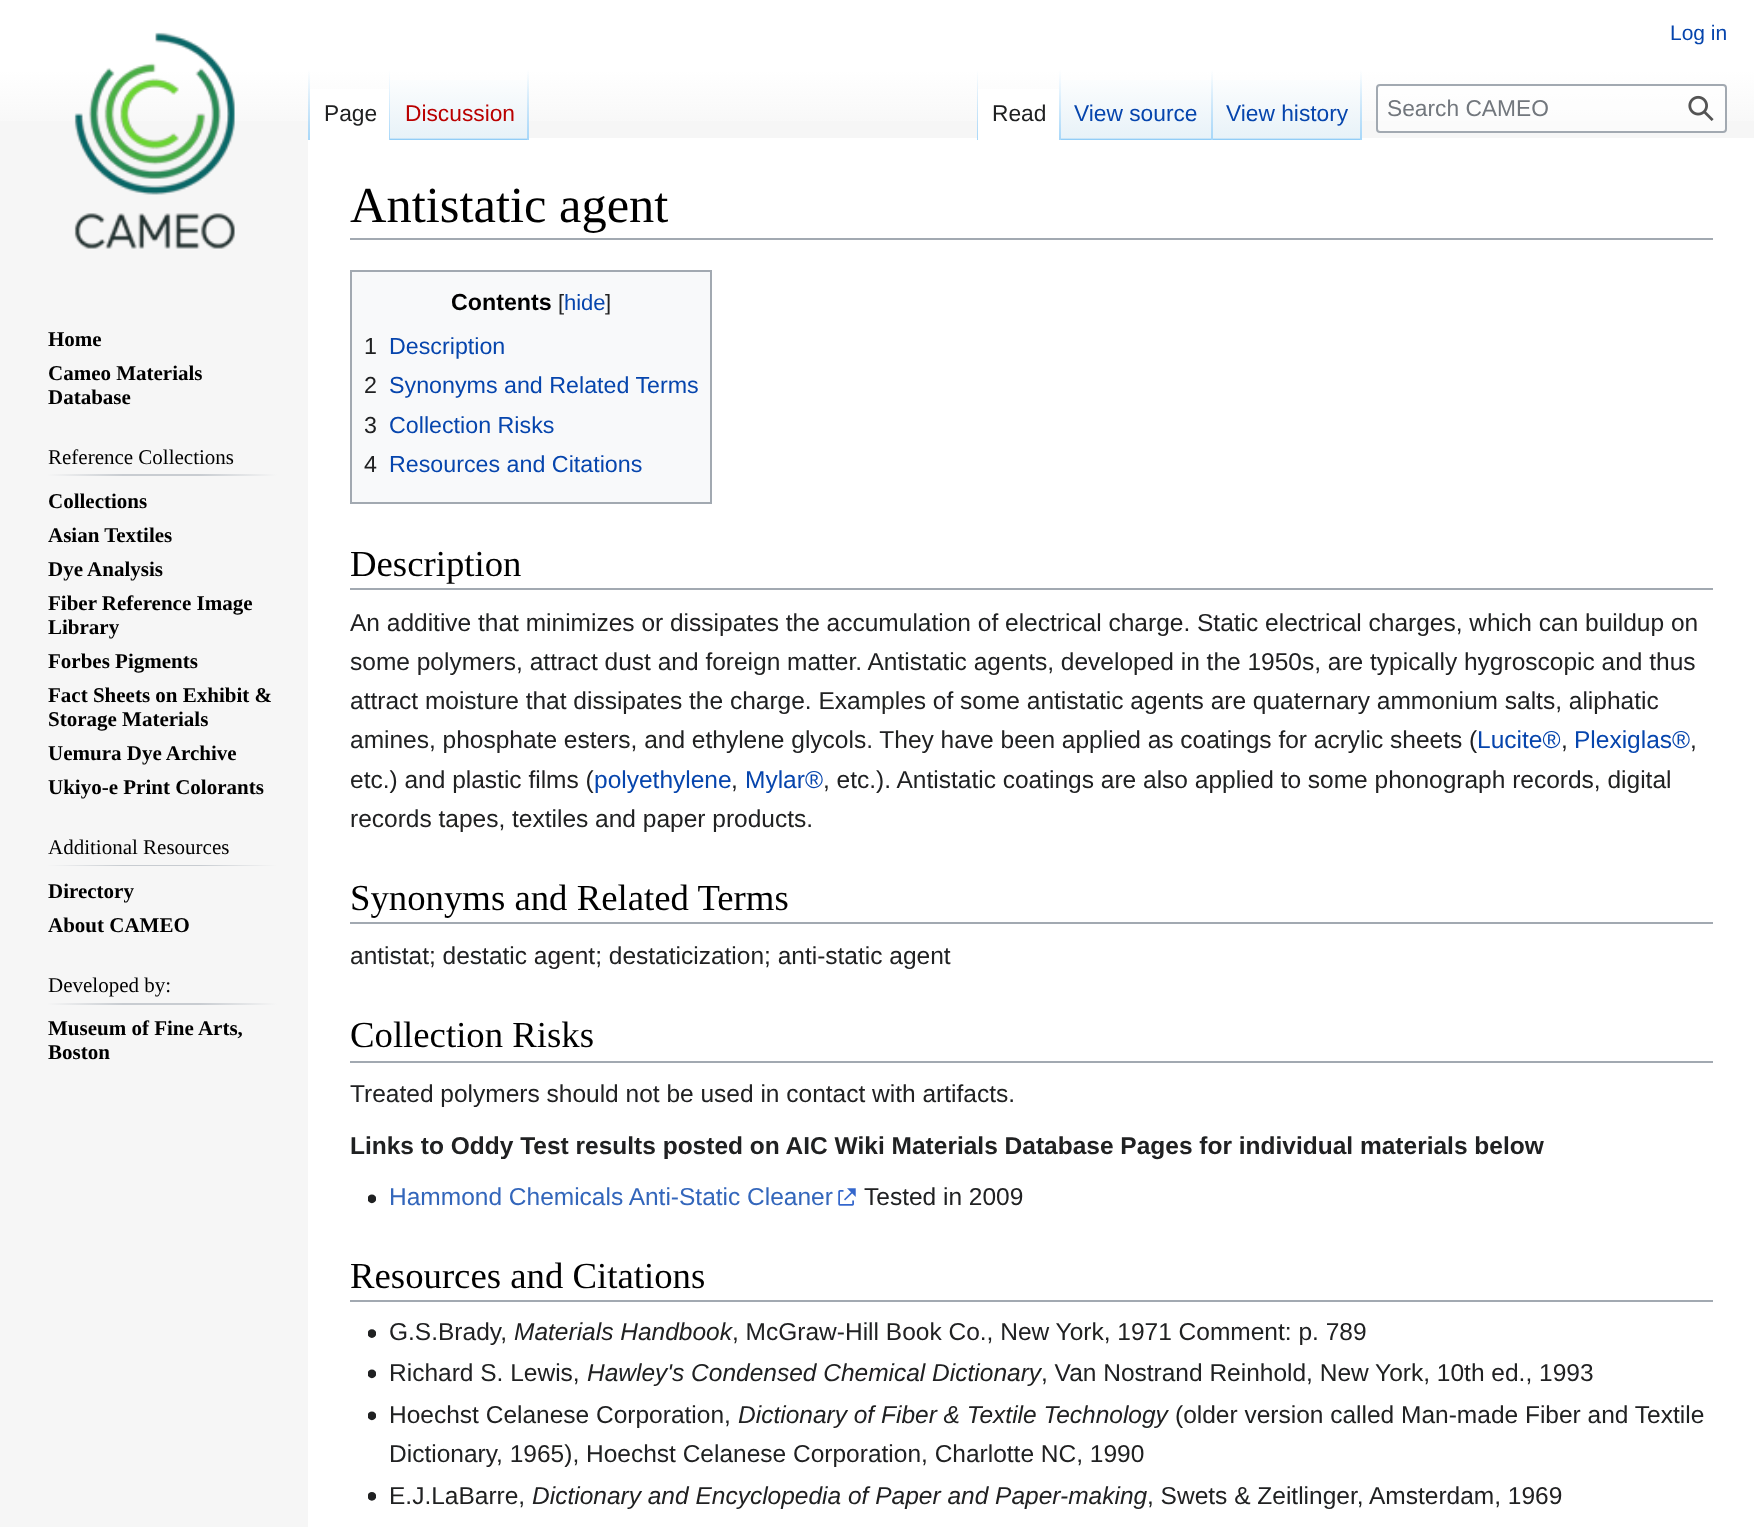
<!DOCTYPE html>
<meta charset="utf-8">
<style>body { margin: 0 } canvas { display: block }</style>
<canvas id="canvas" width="1754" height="1527"></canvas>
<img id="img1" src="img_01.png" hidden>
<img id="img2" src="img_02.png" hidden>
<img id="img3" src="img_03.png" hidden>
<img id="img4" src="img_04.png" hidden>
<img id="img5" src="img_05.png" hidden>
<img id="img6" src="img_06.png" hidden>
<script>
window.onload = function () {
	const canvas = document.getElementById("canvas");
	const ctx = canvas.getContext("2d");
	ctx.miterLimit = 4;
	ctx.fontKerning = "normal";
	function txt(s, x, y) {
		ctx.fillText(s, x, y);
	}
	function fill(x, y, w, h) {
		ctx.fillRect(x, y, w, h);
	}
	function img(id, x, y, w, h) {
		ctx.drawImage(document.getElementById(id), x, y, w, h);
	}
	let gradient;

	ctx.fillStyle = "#F6F6F6";
	fill(0, 0, 1754, 1527);
	gradient = ctx.createLinearGradient(878, 0, 878, 140);
	gradient.addColorStop(0.5, "#FFFFFF");
	gradient.addColorStop(1, "#F6F6F6");
	ctx.fillStyle = gradient;
	fill(0, 0, 1754, 121);
	ctx.fillStyle = "#FFFFFF";
	fill(308, 138, 1446, 1389);
	gradient = ctx.createLinearGradient(309, 70, 309, 140);
	gradient.addColorStop(0, "rgba(167, 215, 249, 0)");
	gradient.addColorStop(1, "#A7D7F9");
	ctx.fillStyle = gradient;
	fill(308, 70, 2, 70);
	ctx.fillStyle = "#FFFFFF";
	fill(310, 89, 79, 49);
	gradient = ctx.createLinearGradient(389, 70, 389, 140);
	gradient.addColorStop(0, "#FFFFFF");
	gradient.addColorStop(1, "#A7D7F9");
	ctx.fillStyle = gradient;
	fill(389, 70, 1, 70);
	gradient = ctx.createLinearGradient(459, 140, 459, 70);
	gradient.addColorStop(0, "#77C1F6");
	gradient.addColorStop(0.03, "#E8F2F8");
	gradient.addColorStop(1, "#FFFFFF");
	ctx.fillStyle = gradient;
	fill(390, 80, 139, 60);
	gradient = ctx.createLinearGradient(528, 70, 528, 140);
	gradient.addColorStop(0, "rgba(167, 215, 249, 0)");
	gradient.addColorStop(1, "#A7D7F9");
	ctx.fillStyle = gradient;
	fill(527, 70, 2, 70);
	gradient = ctx.createLinearGradient(977, 70, 977, 140);
	gradient.addColorStop(0, "rgba(167, 215, 249, 0)");
	gradient.addColorStop(1, "#A7D7F9");
	ctx.fillStyle = gradient;
	fill(977, 70, 1, 70);
	ctx.fillStyle = "#FFFFFF";
	fill(978, 89, 81, 49);
	gradient = ctx.createLinearGradient(1060, 70, 1060, 140);
	gradient.addColorStop(0, "#FFFFFF");
	gradient.addColorStop(1, "#A7D7F9");
	ctx.fillStyle = gradient;
	fill(1059, 70, 2, 70);
	gradient = ctx.createLinearGradient(1137, 140, 1137, 70);
	gradient.addColorStop(0, "#77C1F6");
	gradient.addColorStop(0.03, "#E8F2F8");
	gradient.addColorStop(1, "#FFFFFF");
	ctx.fillStyle = gradient;
	fill(1061, 80, 152, 60);
	gradient = ctx.createLinearGradient(1212, 70, 1212, 140);
	gradient.addColorStop(0, "rgba(167, 215, 249, 0)");
	gradient.addColorStop(1, "#A7D7F9");
	ctx.fillStyle = gradient;
	fill(1211, 70, 2, 70);
	gradient = ctx.createLinearGradient(1287, 140, 1287, 70);
	gradient.addColorStop(0, "#77C1F6");
	gradient.addColorStop(0.03, "#E8F2F8");
	gradient.addColorStop(1, "#FFFFFF");
	ctx.fillStyle = gradient;
	fill(1213, 80, 149, 60);
	gradient = ctx.createLinearGradient(1361, 70, 1361, 140);
	gradient.addColorStop(0, "rgba(167, 215, 249, 0)");
	gradient.addColorStop(1, "#A7D7F9");
	ctx.fillStyle = gradient;
	fill(1360, 70, 2, 70);
	ctx.fillStyle = "rgba(255, 255, 255, 0.5)";
	ctx.beginPath();
	ctx.roundRect(1377, 85, 349, 47, 3);
	ctx.fill();
	ctx.strokeStyle = "#A2A9B1";
	ctx.lineWidth = 2;
	ctx.stroke();
	img("img1", 1688, 95, 26, 26);
	img("img2", 74, 32, 161, 217);
	gradient = ctx.createLinearGradient(47, 475, 277, 475);
	gradient.addColorStop(0, "#F6F6F6");
	gradient.addColorStop(0.33, "#C8CCD1");
	gradient.addColorStop(0.66, "#C8CCD1");
	gradient.addColorStop(1, "#F6F6F6");
	ctx.fillStyle = gradient;
	fill(47, 474, 230, 2);
	gradient = ctx.createLinearGradient(47, 865, 277, 865);
	gradient.addColorStop(0, "#F6F6F6");
	gradient.addColorStop(0.33, "#C8CCD1");
	gradient.addColorStop(0.66, "#C8CCD1");
	gradient.addColorStop(1, "#F6F6F6");
	ctx.fillStyle = gradient;
	fill(47, 865, 230, 1);
	gradient = ctx.createLinearGradient(47, 1004, 277, 1004);
	gradient.addColorStop(0, "#F6F6F6");
	gradient.addColorStop(0.33, "#C8CCD1");
	gradient.addColorStop(0.66, "#C8CCD1");
	gradient.addColorStop(1, "#F6F6F6");
	ctx.fillStyle = gradient;
	fill(47, 1003, 230, 2);
	ctx.fillStyle = "#A2A9B1";
	fill(350, 238, 1363, 2);
	ctx.fillStyle = "#F8F9FA";
	ctx.beginPath();
	ctx.rect(351, 271, 360, 232);
	ctx.fill();
	ctx.stroke();
	ctx.fillStyle = "#A2A9B1";
	fill(350, 588, 1363, 2);
	fill(350, 922, 1363, 2);
	fill(350, 1061, 1363, 2);
	img("img3", 368, 1194, 8, 10);
	img("img4", 838, 1188, 18, 18);
	fill(350, 1300, 1363, 2);
	img("img5", 368, 1329, 8, 9);
	img("img3", 368, 1369, 8, 10);
	img("img3", 368, 1411, 8, 10);
	img("img6", 368, 1492, 8, 9);
	ctx.font = "21px Liberation Sans";
	ctx.fillStyle = "#0645AD";
	txt("Log in", 1670, 40);
	ctx.font = "22.75px Liberation Sans";
	ctx.fillStyle = "#202122";
	txt("Page", 324, 121);
	ctx.fillStyle = "#BA0000";
	txt("Discussion", 405, 121);
	ctx.fillStyle = "#202122";
	txt("Read", 992, 121);
	ctx.fillStyle = "#0645AD";
	txt("View source", 1074, 121);
	txt("View history", 1226, 121);
	ctx.fillStyle = "#72777D";
	txt("Search CAMEO", 1387, 116);
	ctx.font = "bold 21px Liberation Serif";
	ctx.fillStyle = "#000000";
	txt("Home", 48, 346);
	txt("Cameo Materials", 48, 380);
	txt("Database", 48, 404);
	ctx.font = "21px Liberation Serif";
	txt("Reference Collections", 48, 464);
	ctx.font = "bold 21px Liberation Serif";
	txt("Collections", 48, 508);
	txt("Asian Textiles", 48, 542);
	txt("Dye Analysis", 48, 576);
	txt("Fiber Reference Image", 48, 610);
	txt("Library", 48, 634);
	txt("Forbes Pigments", 48, 668);
	txt("Fact Sheets on Exhibit &", 48, 702);
	txt("Storage Materials", 48, 726);
	txt("Uemura Dye Archive", 48, 760);
	txt("Ukiyo-e Print Colorants", 48, 794);
	ctx.font = "21px Liberation Serif";
	txt("Additional Resources", 48, 854);
	ctx.font = "bold 21px Liberation Serif";
	txt("Directory", 48, 898);
	txt("About CAMEO", 48, 932);
	ctx.font = "21px Liberation Serif";
	txt("Developed by:", 48, 992);
	ctx.font = "bold 21px Liberation Serif";
	txt("Museum of Fine Arts,", 48, 1035);
	txt("Boston", 48, 1059);
	ctx.font = "50.5px Liberation Serif";
	txt("Antistatic agent", 350, 222);
	ctx.font = "bold 23.25px Liberation Sans";
	txt("Contents", 451, 310);
	ctx.font = "22px Liberation Sans";
	ctx.fillStyle = "#202122";
	txt("[", 558, 310);
	ctx.fillStyle = "#0645AD";
	txt("hide", 564, 310);
	ctx.fillStyle = "#202122";
	txt("]", 605, 310);
	ctx.font = "23.25px Liberation Sans";
	txt("1", 364, 354);
	ctx.fillStyle = "#0645AD";
	txt("Description", 389, 354);
	ctx.fillStyle = "#202122";
	txt("2", 364, 393);
	ctx.fillStyle = "#0645AD";
	txt("Synonyms and Related Terms", 389, 393);
	ctx.fillStyle = "#202122";
	txt("3", 364, 433);
	ctx.fillStyle = "#0645AD";
	txt("Collection Risks", 389, 433);
	ctx.fillStyle = "#202122";
	txt("4", 364, 472);
	ctx.fillStyle = "#0645AD";
	txt("Resources and Citations", 389, 472);
	ctx.font = "36.75px Liberation Serif";
	ctx.fillStyle = "#000000";
	txt("Description", 350, 576);
	ctx.font = "24.5px Liberation Sans";
	ctx.fillStyle = "#202122";
	txt("An additive that minimizes or dissipates the accumulation of electrical charge. Static electrical charges, which can buildup on", 350, 631);
	txt("some polymers, attract dust and foreign matter. Antistatic agents, developed in the 1950s, are typically hygroscopic and thus", 350, 670);
	txt("attract moisture that dissipates the charge. Examples of some antistatic agents are quaternary ammonium salts, aliphatic", 350, 709);
	txt("amines, phosphate esters, and ethylene glycols. They have been applied as coatings for acrylic sheets (", 350, 748);
	ctx.fillStyle = "#0645AD";
	txt("Lucite®", 1477, 748);
	ctx.fillStyle = "#202122";
	txt(",", 1561, 748);
	ctx.fillStyle = "#0645AD";
	txt("Plexiglas®", 1574, 748);
	ctx.fillStyle = "#202122";
	txt(",", 1690, 748);
	txt("etc.) and plastic films (", 350, 788);
	ctx.fillStyle = "#0645AD";
	txt("polyethylene", 594, 788);
	ctx.fillStyle = "#202122";
	txt(",", 731, 788);
	ctx.fillStyle = "#0645AD";
	txt("Mylar®", 745, 788);
	ctx.fillStyle = "#202122";
	txt(", etc.). Antistatic coatings are also applied to some phonograph records, digital", 823, 788);
	txt("records tapes, textiles and paper products.", 350, 827);
	ctx.font = "36.75px Liberation Serif";
	ctx.fillStyle = "#000000";
	txt("Synonyms and Related Terms", 350, 910);
	ctx.font = "24.5px Liberation Sans";
	ctx.fillStyle = "#202122";
	txt("antistat; destatic agent; destaticization; anti-static agent", 350, 964);
	ctx.font = "36.75px Liberation Serif";
	ctx.fillStyle = "#000000";
	txt("Collection Risks", 350, 1047);
	ctx.font = "24.5px Liberation Sans";
	ctx.fillStyle = "#202122";
	txt("Treated polymers should not be used in contact with artifacts.", 350, 1102);
	ctx.font = "bold 24.5px Liberation Sans";
	txt("Links to Oddy Test results posted on AIC Wiki Materials Database Pages for individual materials below", 350, 1154);
	ctx.font = "24.5px Liberation Sans";
	ctx.fillStyle = "#3366BB";
	txt("Hammond Chemicals Anti-Static Cleaner", 389, 1205);
	ctx.fillStyle = "#202122";
	txt("Tested in 2009", 864, 1205);
	ctx.font = "36.75px Liberation Serif";
	ctx.fillStyle = "#000000";
	txt("Resources and Citations", 350, 1288);
	ctx.font = "24.5px Liberation Sans";
	ctx.fillStyle = "#202122";
	txt("G.S.Brady,", 389, 1340);
	ctx.font = "italic 24.5px Liberation Sans";
	txt("Materials Handbook", 514, 1340);
	ctx.font = "24.5px Liberation Sans";
	txt(", McGraw-Hill Book Co., New York, 1971 Comment: p. 789", 732, 1340);
	txt("Richard S. Lewis,", 389, 1381);
	ctx.font = "italic 24.5px Liberation Sans";
	txt("Hawley's Condensed Chemical Dictionary", 587, 1381);
	ctx.font = "24.5px Liberation Sans";
	txt(", Van Nostrand Reinhold, New York, 10th ed., 1993", 1041, 1381);
	txt("Hoechst Celanese Corporation,", 389, 1423);
	ctx.font = "italic 24.5px Liberation Sans";
	txt("Dictionary of Fiber & Textile Technology", 738, 1423);
	ctx.font = "24.5px Liberation Sans";
	txt("(older version called Man-made Fiber and Textile", 1175, 1423);
	txt("Dictionary, 1965), Hoechst Celanese Corporation, Charlotte NC, 1990", 389, 1462);
	txt("E.J.LaBarre,", 389, 1504);
	ctx.font = "italic 24.5px Liberation Sans";
	txt("Dictionary and Encyclopedia of Paper and Paper-making", 532, 1504);
	ctx.font = "24.5px Liberation Sans";
	txt(", Swets & Zeitlinger, Amsterdam, 1969", 1147, 1504);
};
</script>
